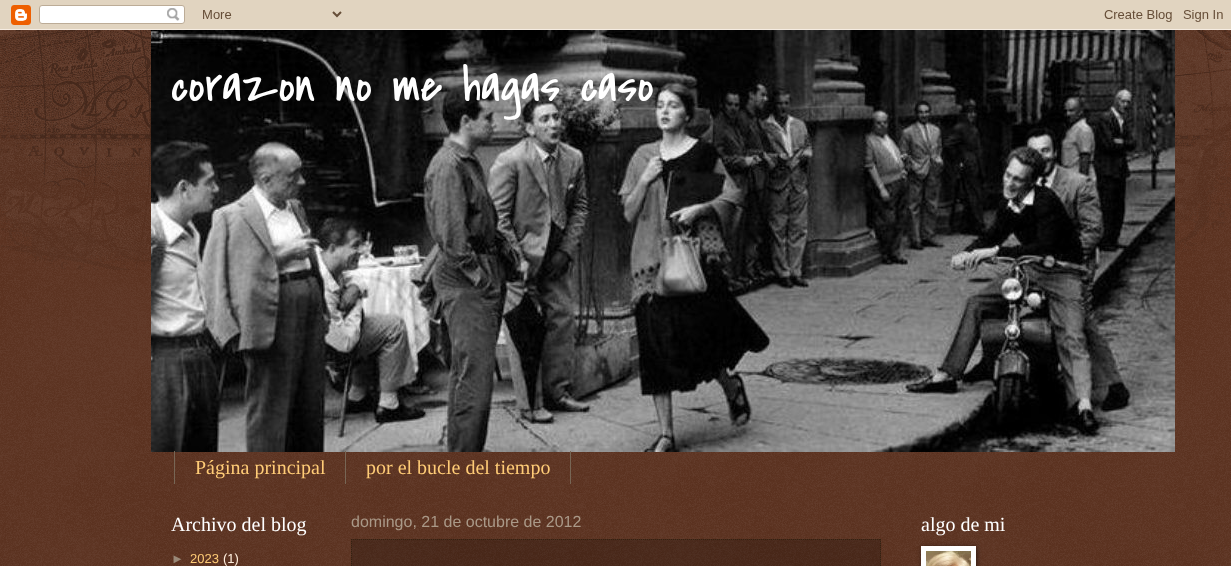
<!DOCTYPE html>
<meta charset="utf-8">
<style>body { margin: 0 } canvas { display: block }</style>
<canvas id="canvas" width="1231" height="566"></canvas>
<img id="img1" src="img_01.png" hidden>
<img id="img2" src="img_02.png" hidden>
<img id="img3" src="img_03.png" hidden>
<img id="img4" src="img_04.png" hidden>
<img id="img5" src="img_05.png" hidden>
<script>
window.onload = function () {
	const canvas = document.getElementById("canvas");
	const ctx = canvas.getContext("2d");
	ctx.miterLimit = 4;
	ctx.fontKerning = "normal";
	function txt(s, x, y) {
		ctx.fillText(s, x, y);
	}
	function fill(x, y, w, h) {
		ctx.fillRect(x, y, w, h);
	}
	function img(id, x, y, w, h) {
		ctx.drawImage(document.getElementById(id), x, y, w, h);
	}

	ctx.fillStyle = "#441500";
	fill(0, 0, 1231, 566);
	img("img1", 0, 30, 1231, 536);
	img("img2", 0, 0, 1231, 30);
	img("img3", 0, 30, 1231, 240);
	img("img4", 151, 30, 1024, 422);
	ctx.fillStyle = "#776655";
	fill(345, 451, 1, 33);
	fill(174, 451, 1, 33);
	fill(570, 451, 1, 33);
	ctx.fillStyle = "rgba(0, 0, 0, 0.2)";
	fill(351, 539, 530, 27);
	ctx.beginPath();
	ctx.moveTo(351, 539.5);
	ctx.lineTo(881, 539.5);
	ctx.strokeStyle = "#332211";
	ctx.setLineDash([1, 1]);
	ctx.stroke();
	ctx.beginPath();
	ctx.moveTo(880.5, 539);
	ctx.lineTo(880.5, 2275);
	ctx.stroke();
	ctx.beginPath();
	ctx.moveTo(351.5, 539);
	ctx.lineTo(351.5, 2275);
	ctx.stroke();
	ctx.fillStyle = "rgba(0, 0, 0, 0.5)";
	ctx.filter = "blur(2.5px)";
	ctx.beginPath();
	ctx.rect(922, 547, 55, 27);
	ctx.fill();
	ctx.filter = "none";
	ctx.fillStyle = "#FFFFFF";
	fill(921, 546, 55, 20);
	img("img5", 926, 551, 45, 15);
	ctx.font = "50px Covered By Your Grace";
	txt("corazon no me hagas caso", 171, 101);
	ctx.font = "20px Liberation Serif";
	ctx.fillStyle = "#FFCC77";
	txt("Página principal", 195, 474);
	txt("por el bucle del tiempo", 366, 474);
	ctx.fillStyle = "#FFFFFF";
	txt("Archivo del blog", 171, 531);
	ctx.font = "13px Liberation Sans";
	ctx.fillStyle = "#998877";
	txt("►", 171, 563);
	ctx.fillStyle = "#FFCC77";
	txt("2023", 190, 563);
	ctx.fillStyle = "#FFEEDD";
	txt("(1)", 223, 563);
	ctx.font = "16px Liberation Sans";
	ctx.fillStyle = "#AA9988";
	txt("domingo, 21 de octubre de 2012", 351, 527);
	ctx.font = "20px Liberation Serif";
	ctx.fillStyle = "#FFFFFF";
	txt("algo de mi", 921, 531);
};
</script>
